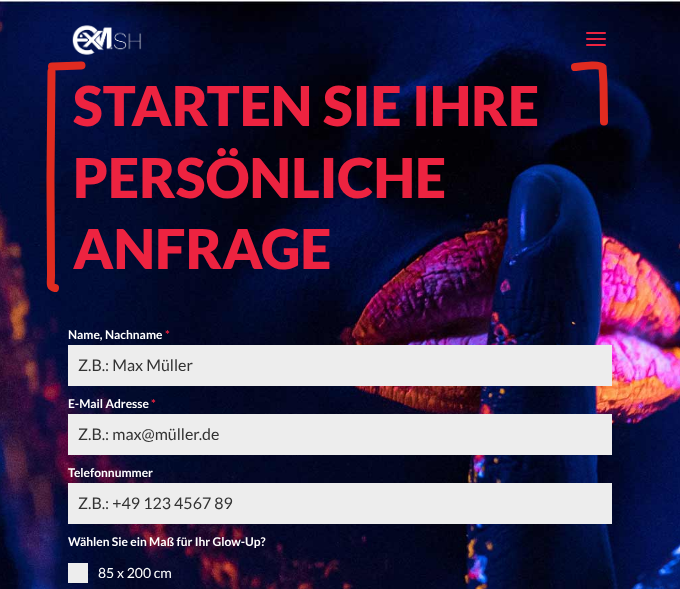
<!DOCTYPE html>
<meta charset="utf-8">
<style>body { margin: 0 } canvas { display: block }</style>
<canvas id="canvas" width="680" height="589"></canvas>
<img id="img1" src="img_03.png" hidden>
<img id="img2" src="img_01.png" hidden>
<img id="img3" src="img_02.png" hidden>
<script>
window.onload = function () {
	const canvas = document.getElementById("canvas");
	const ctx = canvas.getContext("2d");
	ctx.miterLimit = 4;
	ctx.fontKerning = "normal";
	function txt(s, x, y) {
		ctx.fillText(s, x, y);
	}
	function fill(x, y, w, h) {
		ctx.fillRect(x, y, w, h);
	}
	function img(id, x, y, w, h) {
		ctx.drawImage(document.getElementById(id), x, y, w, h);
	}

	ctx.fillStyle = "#FFFFFF";
	fill(0, 0, 680, 589);
	img("img1", 0, 0, 680, 589);
	img("img2", 72, 25, 70, 30);
	img("img3", 586, 32, 20, 14);
	ctx.beginPath();
	ctx.moveTo(81.5, 65.5);
	ctx.lineTo(52, 66.5);
	ctx.strokeStyle = "#E02B20";
	ctx.lineWidth = 8;
	ctx.lineCap = "round";
	ctx.stroke();
	ctx.beginPath();
	ctx.moveTo(51.5, 71.5);
	ctx.lineTo(50.5, 177);
	ctx.lineTo(51, 275.5);
	ctx.bezierCurveTo(51, 283, 49, 287, 55, 288);
	ctx.stroke();
	ctx.beginPath();
	ctx.moveTo(575, 67);
	ctx.bezierCurveTo(580, 66.5, 599.5, 63.5, 602.5, 67.5);
	ctx.lineTo(603.5, 83.5);
	ctx.lineTo(604, 121.5);
	ctx.stroke();
	ctx.fillStyle = "#EDEDED";
	fill(68, 345, 544, 41);
	fill(68, 414, 544, 41);
	fill(68, 483, 544, 41);
	fill(68, 563, 20, 20);
	ctx.font = "900 55px Lato";
	ctx.fillStyle = "#ED2340";
	txt("STARTEN SIE IHRE", 73, 126);
	txt("PERSÖNLICHE", 73, 198);
	txt("ANFRAGE", 73, 269);
	ctx.font = "bold 12px Lato";
	ctx.fillStyle = "#FFFFFF";
	txt("Name, Nachname", 68, 339);
	ctx.fillStyle = "#ED2340";
	txt("*", 165, 339);
	ctx.font = "16px Lato";
	ctx.fillStyle = "#333333";
	txt("Z.B.: Max Müller", 78, 371);
	ctx.font = "bold 12px Lato";
	ctx.fillStyle = "#FFFFFF";
	txt("E-Mail Adresse", 68, 408);
	ctx.fillStyle = "#ED2340";
	txt("*", 151, 408);
	ctx.font = "16px Lato";
	ctx.fillStyle = "#333333";
	txt("Z.B.: max@müller.de", 78, 440);
	ctx.font = "bold 12px Lato";
	ctx.fillStyle = "#FFFFFF";
	txt("Telefonnummer", 68, 477);
	ctx.font = "16px Lato";
	ctx.fillStyle = "#333333";
	txt("Z.B.: +49 123 4567 89", 78, 509);
	ctx.font = "bold 12px Lato";
	ctx.fillStyle = "#FFFFFF";
	txt("Wählen Sie ein Maß für Ihr Glow-Up?", 68, 546);
	ctx.font = "14px Lato";
	txt("85 x 200 cm", 98, 578);
};
</script>
